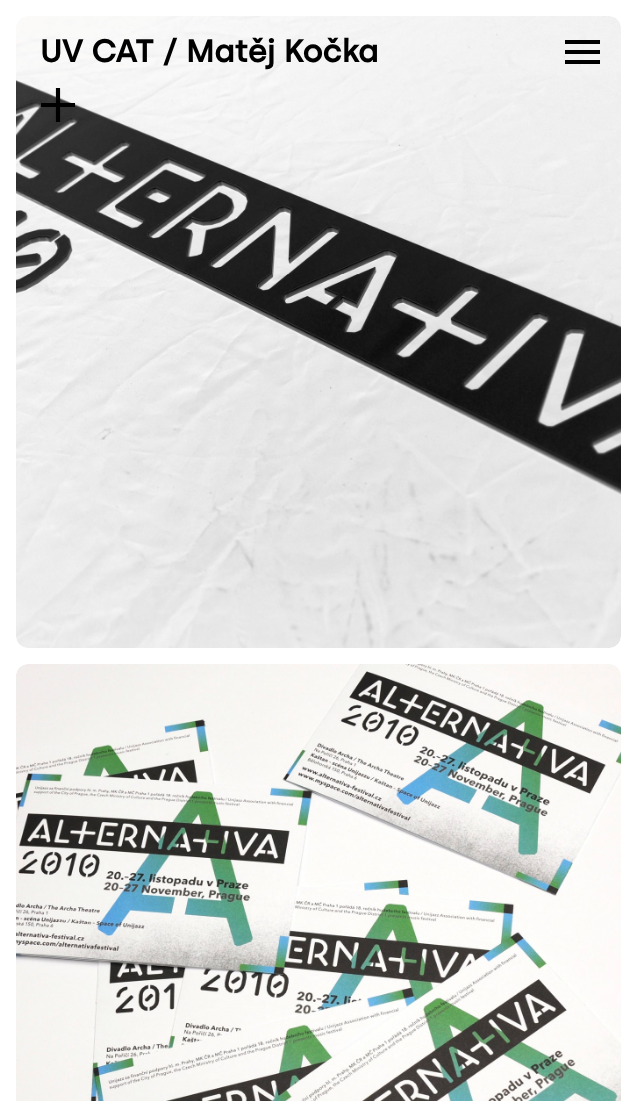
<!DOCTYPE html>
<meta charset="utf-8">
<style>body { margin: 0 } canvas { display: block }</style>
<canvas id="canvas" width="637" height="1101"></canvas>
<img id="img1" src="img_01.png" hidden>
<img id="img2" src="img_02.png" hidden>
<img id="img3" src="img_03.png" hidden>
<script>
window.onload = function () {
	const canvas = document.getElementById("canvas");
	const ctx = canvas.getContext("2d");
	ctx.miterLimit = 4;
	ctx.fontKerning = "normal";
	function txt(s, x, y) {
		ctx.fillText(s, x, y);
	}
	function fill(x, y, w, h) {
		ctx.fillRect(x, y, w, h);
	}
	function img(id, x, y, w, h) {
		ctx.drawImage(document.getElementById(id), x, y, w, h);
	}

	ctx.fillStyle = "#FFFFFF";
	fill(0, 0, 637, 1101);
	img("img1", 16, 16, 605, 632);
	img("img2", 16, 664, 605, 437);
	ctx.fillStyle = "#000000";
	fill(565, 50, 35, 4);
	fill(565, 40, 35, 4);
	fill(565, 60, 35, 4);
	img("img3", 41, 88, 34, 34);
	ctx.font = "bold 31.25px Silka";
	txt("UV CAT / Matěj Kočka", 40, 62);
};
</script>
